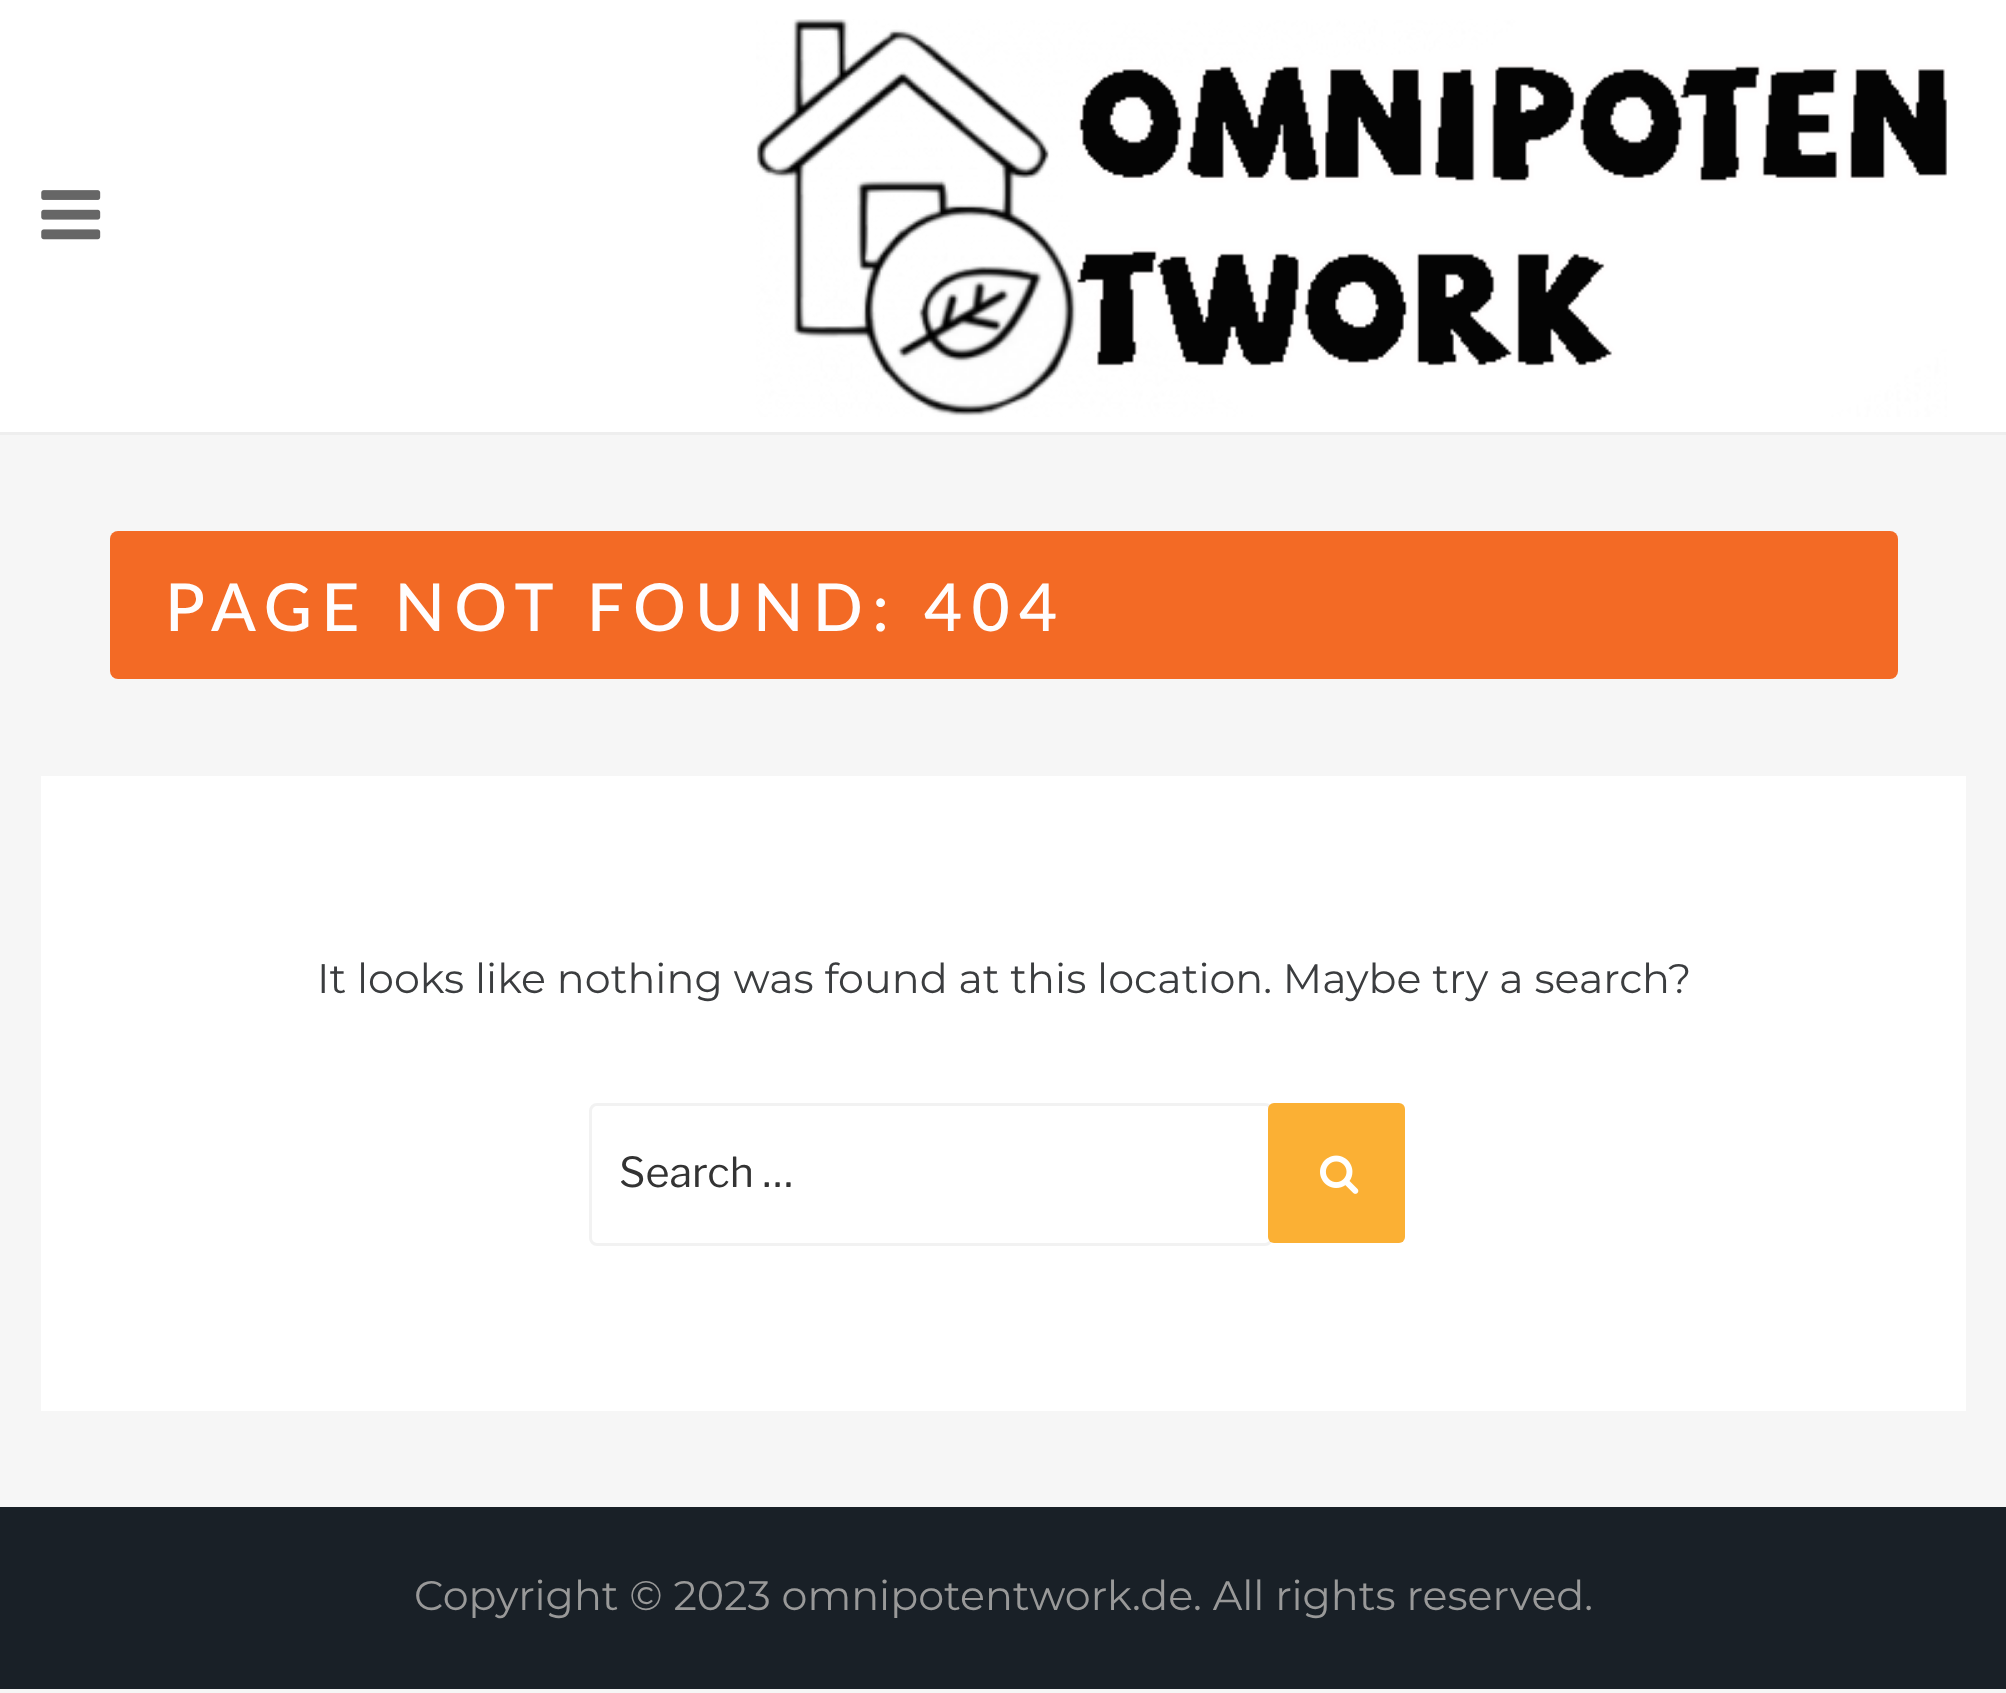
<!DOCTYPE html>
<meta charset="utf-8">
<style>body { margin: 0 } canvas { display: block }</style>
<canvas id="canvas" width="2006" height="1693"></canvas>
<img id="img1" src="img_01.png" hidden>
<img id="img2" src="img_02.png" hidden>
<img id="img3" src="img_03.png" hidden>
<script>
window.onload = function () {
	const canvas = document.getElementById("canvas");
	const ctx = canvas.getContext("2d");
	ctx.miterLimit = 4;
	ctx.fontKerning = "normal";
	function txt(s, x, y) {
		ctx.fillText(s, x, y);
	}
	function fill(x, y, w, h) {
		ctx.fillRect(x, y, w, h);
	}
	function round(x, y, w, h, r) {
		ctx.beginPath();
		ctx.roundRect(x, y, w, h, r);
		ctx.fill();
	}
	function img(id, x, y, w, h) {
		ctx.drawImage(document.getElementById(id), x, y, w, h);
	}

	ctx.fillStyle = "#F6F6F6";
	fill(0, 0, 2006, 1693);
	ctx.fillStyle = "#FFFFFF";
	fill(0, 0, 2006, 432);
	ctx.fillStyle = "#EEEEEE";
	fill(0, 432, 2006, 3);
	img("img1", 41, 190, 60, 50);
	img("img2", 756, 19, 1191, 398);
	ctx.fillStyle = "#F36A25";
	round(110, 531, 1788, 148, 8);
	ctx.fillStyle = "#FFFFFF";
	fill(41, 776, 1925, 635);
	ctx.beginPath();
	ctx.roundRect(590.5, 1104.5, 681, 140, 6.5);
	ctx.strokeStyle = "#F2F2F2";
	ctx.lineWidth = 3;
	ctx.stroke();
	ctx.fillStyle = "#FBB034";
	round(1268, 1103, 137, 140, 6);
	img("img3", 1320, 1155, 39, 39);
	ctx.fillStyle = "#192027";
	fill(0, 1507, 2006, 182);
	ctx.letterSpacing = "9.25px";
	ctx.font = "500 66px Lato";
	ctx.fillStyle = "#FFFDFD";
	txt("PAGE NOT FOUND: 404", 165, 631);
	ctx.letterSpacing = "0px";
	ctx.font = "41.25px Montserrat";
	ctx.fillStyle = "#3B3D3F";
	txt("It looks like nothing was found at this location. Maybe try a search?", 317, 993);
	ctx.font = "41.25px Libre Franklin";
	ctx.fillStyle = "#333333";
	txt("Search …", 619, 1187);
	ctx.font = "41.25px Montserrat";
	ctx.fillStyle = "#999999";
	txt("Copyright © 2023 omnipotentwork.de. All rights reserved.", 414, 1610);
};
</script>
